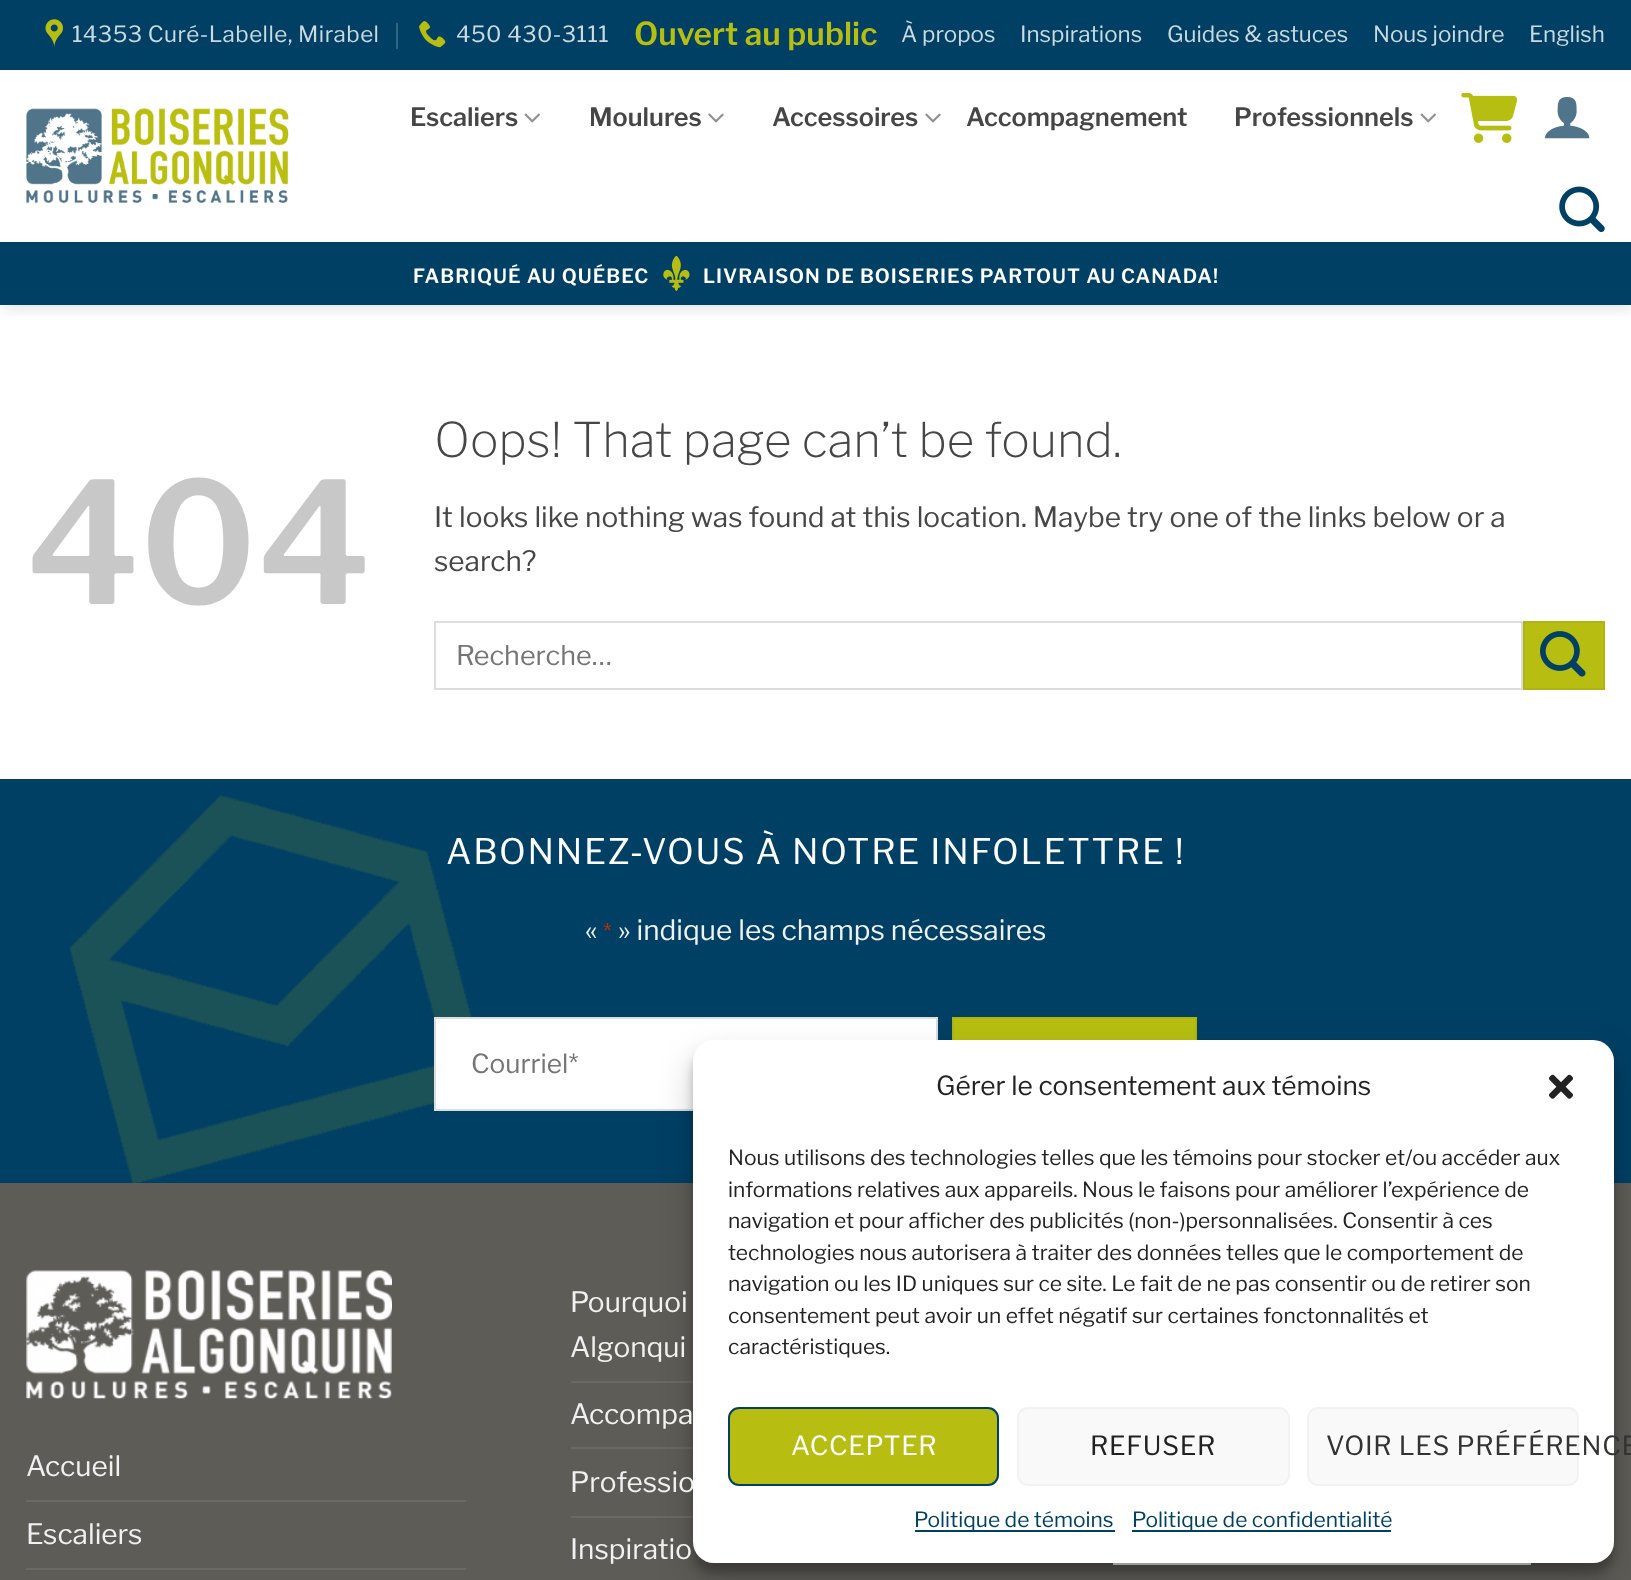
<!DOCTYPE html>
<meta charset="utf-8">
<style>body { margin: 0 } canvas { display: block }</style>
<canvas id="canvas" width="1631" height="1580"></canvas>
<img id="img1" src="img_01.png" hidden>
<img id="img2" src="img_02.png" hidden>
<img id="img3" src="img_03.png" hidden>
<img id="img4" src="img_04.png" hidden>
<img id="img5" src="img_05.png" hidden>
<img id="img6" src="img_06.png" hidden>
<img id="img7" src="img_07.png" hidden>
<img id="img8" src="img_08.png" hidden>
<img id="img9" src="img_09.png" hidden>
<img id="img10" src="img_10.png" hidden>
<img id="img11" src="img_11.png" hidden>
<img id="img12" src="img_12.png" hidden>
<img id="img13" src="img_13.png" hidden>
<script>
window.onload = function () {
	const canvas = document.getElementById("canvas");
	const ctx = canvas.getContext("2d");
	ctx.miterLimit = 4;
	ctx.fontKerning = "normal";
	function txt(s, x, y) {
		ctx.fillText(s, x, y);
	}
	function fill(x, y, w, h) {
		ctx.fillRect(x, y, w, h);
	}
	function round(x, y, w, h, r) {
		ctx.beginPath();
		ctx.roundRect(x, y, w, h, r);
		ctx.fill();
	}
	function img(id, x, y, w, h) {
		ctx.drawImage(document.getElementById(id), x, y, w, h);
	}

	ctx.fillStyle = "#FFFFFF";
	fill(0, 0, 1631, 1580);
	ctx.save();
	ctx.beginPath();
	ctx.rect(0, 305, 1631, 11);
	ctx.clip();
	ctx.fillStyle = "rgba(0, 0, 0, 0.15)";
	ctx.filter = "blur(9px)";
	ctx.beginPath();
	ctx.rect(2, 2, 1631, 304);
	ctx.fill();
	ctx.filter = "none";
	ctx.restore();
	ctx.fillStyle = "#004064";
	fill(0, 0, 1631, 70);
	img("img1", 45, 19, 18, 28);
	ctx.fillStyle = "#336683";
	fill(396, 23, 2, 26);
	img("img2", 419, 21, 27, 27);
	img("img3", 26, 108, 263, 95);
	img("img4", 524, 113, 16, 10);
	img("img5", 708, 113, 16, 10);
	img("img5", 925, 113, 16, 10);
	img("img4", 1420, 113, 16, 10);
	img("img6", 1461, 93, 56, 50);
	img("img7", 1544, 97, 46, 42);
	img("img8", 1559, 186, 46, 47);
	ctx.fillStyle = "#004064";
	fill(0, 242, 1631, 63);
	img("img9", 663, 256, 27, 35);
	ctx.strokeStyle = "#DDDDDD";
	ctx.lineWidth = 2;
	ctx.strokeRect(435, 622, 1087, 67);
	ctx.fillStyle = "#B7BE11";
	ctx.beginPath();
	ctx.rect(1524, 622, 80, 67);
	ctx.fill();
	ctx.strokeStyle = "#AEB510";
	ctx.stroke();
	img("img10", 1540, 631, 46, 46);
	ctx.fillStyle = "#004064";
	fill(0, 779, 1631, 404);
	img("img11", 69, 794, 403, 389);
	ctx.fillStyle = "#FFFFFF";
	ctx.beginPath();
	ctx.rect(435, 1018, 502, 92);
	ctx.fill();
	ctx.strokeStyle = "#DDDDDD";
	ctx.stroke();
	ctx.fillStyle = "#B7BE11";
	fill(954, 1019, 241, 21);
	ctx.strokeStyle = "#AEB510";
	ctx.strokeRect(953, 1018, 243, 92);
	ctx.fillStyle = "#5E5C57";
	fill(0, 1183, 1631, 397);
	img("img12", 26, 1270, 366, 129);
	ctx.fillStyle = "#6B6964";
	fill(26, 1500, 440, 2);
	fill(26, 1568, 440, 2);
	fill(571, 1381, 122, 2);
	fill(571, 1447, 122, 2);
	fill(571, 1516, 122, 2);
	ctx.fillStyle = "#F1F1F1";
	fill(1113, 1563, 418, 2);
	ctx.fillStyle = "rgba(0, 0, 0, 0.23)";
	ctx.filter = "blur(5px)";
	ctx.beginPath();
	ctx.roundRect(693, 1050, 921, 523, 21);
	ctx.fill();
	ctx.filter = "none";
	ctx.fillStyle = "rgba(0, 0, 0, 0.19)";
	ctx.filter = "blur(17.5px)";
	ctx.beginPath();
	ctx.roundRect(693, 1057, 921, 523, 21);
	ctx.fill();
	ctx.filter = "none";
	ctx.letterSpacing = "0.45px";
	ctx.font = "22.4px Libre Franklin";
	ctx.fillStyle = "#CCD9E0";
	txt("14353 Curé-Labelle, Mirabel", 72, 42);
	txt("450 430-3111", 456, 42);
	ctx.letterSpacing = "0px";
	ctx.font = "600 31.5px Libre Franklin";
	ctx.fillStyle = "#B7BE12";
	txt("Ouvert au public", 634, 45);
	ctx.font = "22.4px Libre Franklin";
	ctx.fillStyle = "#CCD9E0";
	txt("À propos", 901, 42);
	txt("Inspirations", 1020, 42);
	txt("Guides & astuces", 1167, 42);
	txt("Nous joindre", 1373, 42);
	txt("English", 1529, 42);
	ctx.font = "600 25.25px Libre Franklin";
	ctx.fillStyle = "#464646";
	txt("Escaliers", 410, 126);
	txt("Moulures", 589, 126);
	txt("Accessoires", 772, 126);
	txt("Accompagnement", 966, 126);
	txt("Professionnels", 1234, 126);
	ctx.letterSpacing = "1px";
	ctx.font = "600 19.5px Libre Franklin";
	ctx.fillStyle = "#FFFFFF";
	txt("FABRIQUÉ AU QUÉBEC", 413, 283);
	txt("LIVRAISON DE BOISERIES PARTOUT AU CANADA!", 703, 283);
	ctx.letterSpacing = "0px";
	ctx.font = "600 168px Libre Franklin";
	ctx.fillStyle = "#C8C8C8";
	txt("404", 26, 604);
	ctx.font = "200 47.6px Libre Franklin";
	ctx.fillStyle = "#464646";
	txt("Oops! That page can’t be found.", 434, 457);
	ctx.font = "28px Libre Franklin";
	txt("It looks like nothing was found at this location. Maybe try one of the links below or a", 434, 527);
	txt("search?", 434, 571);
	ctx.font = "27px Libre Franklin";
	ctx.fillStyle = "#757575";
	txt("Recherche…", 456, 665);
	ctx.letterSpacing = "1.75px";
	ctx.font = "35px Libre Franklin";
	ctx.fillStyle = "#FFFFFF";
	txt("ABONNEZ-VOUS À NOTRE INFOLETTRE !", 446, 864);
	ctx.letterSpacing = "0px";
	ctx.font = "28px Libre Franklin";
	ctx.fillStyle = "#F1F1F1";
	txt("«", 585, 940);
	ctx.font = "23px Libre Franklin";
	ctx.fillStyle = "#C02B0A";
	txt("*", 603, 940);
	ctx.font = "28px Libre Franklin";
	ctx.fillStyle = "#F1F1F1";
	txt("» indique les champs nécessaires", 618, 940);
	ctx.font = "26.25px Libre Franklin";
	ctx.fillStyle = "#757575";
	txt("Courriel*", 471, 1073);
	ctx.font = "28px Libre Franklin";
	ctx.fillStyle = "#F1F1F1";
	txt("Accueil", 26, 1476);
	txt("Escaliers", 26, 1544);
	txt("Pourquoi", 570, 1312);
	txt("Algonqui", 570, 1357);
	txt("Accompa", 570, 1424);
	txt("Professio", 570, 1492);
	txt("Inspiratio", 570, 1559);
	ctx.fillStyle = "#FFFFFF";
	round(693, 1040, 921, 523, 21);
	ctx.font = "26.25px Libre Franklin";
	ctx.fillStyle = "#222222";
	txt("Gérer le consentement aux témoins", 936, 1095);
	img("img13", 1549, 1074, 24, 25);
	ctx.font = "21px Libre Franklin";
	txt("Nous utilisons des technologies telles que les témoins pour stocker et/ou accéder aux", 728, 1165);
	txt("informations relatives aux appareils. Nous le faisons pour améliorer l’expérience de", 728, 1197);
	txt("navigation et pour afficher des publicités (non-)personnalisées. Consentir à ces", 728, 1228);
	txt("technologies nous autorisera à traiter des données telles que le comportement de", 728, 1260);
	txt("navigation ou les ID uniques sur ce site. Le fait de ne pas consentir ou de retirer son", 728, 1291);
	txt("consentement peut avoir un effet négatif sur certaines fonctonnalités et", 728, 1323);
	txt("caractéristiques.", 728, 1354);
	ctx.fillStyle = "#B7BE11";
	ctx.beginPath();
	ctx.roundRect(729, 1408, 269, 77, 10);
	ctx.fill();
	ctx.strokeStyle = "#004064";
	ctx.stroke();
	ctx.letterSpacing = "0.75px";
	ctx.font = "26.25px Libre Franklin";
	ctx.fillStyle = "#FFFFFF";
	txt("ACCEPTER", 791, 1455);
	ctx.fillStyle = "#F9F9F9";
	ctx.beginPath();
	ctx.roundRect(1018, 1408, 271, 77, 10);
	ctx.fill();
	ctx.strokeStyle = "#F2F2F2";
	ctx.stroke();
	ctx.fillStyle = "#222222";
	txt("REFUSER", 1090, 1455);
	ctx.fillStyle = "#F9F9F9";
	ctx.beginPath();
	ctx.roundRect(1308, 1408, 270, 77, 10);
	ctx.fill();
	ctx.stroke();
	ctx.fillStyle = "#333333";
	txt("VOIR LES PRÉFÉRENCE", 1326, 1455);
	ctx.fillStyle = "#004064";
	fill(915, 1530, 200, 2);
	ctx.letterSpacing = "0px";
	ctx.font = "21px Libre Franklin";
	txt("Politique de témoins", 914, 1527);
	fill(1132, 1530, 259, 2);
	txt("Politique de confidentialité", 1132, 1527);
};
</script>
